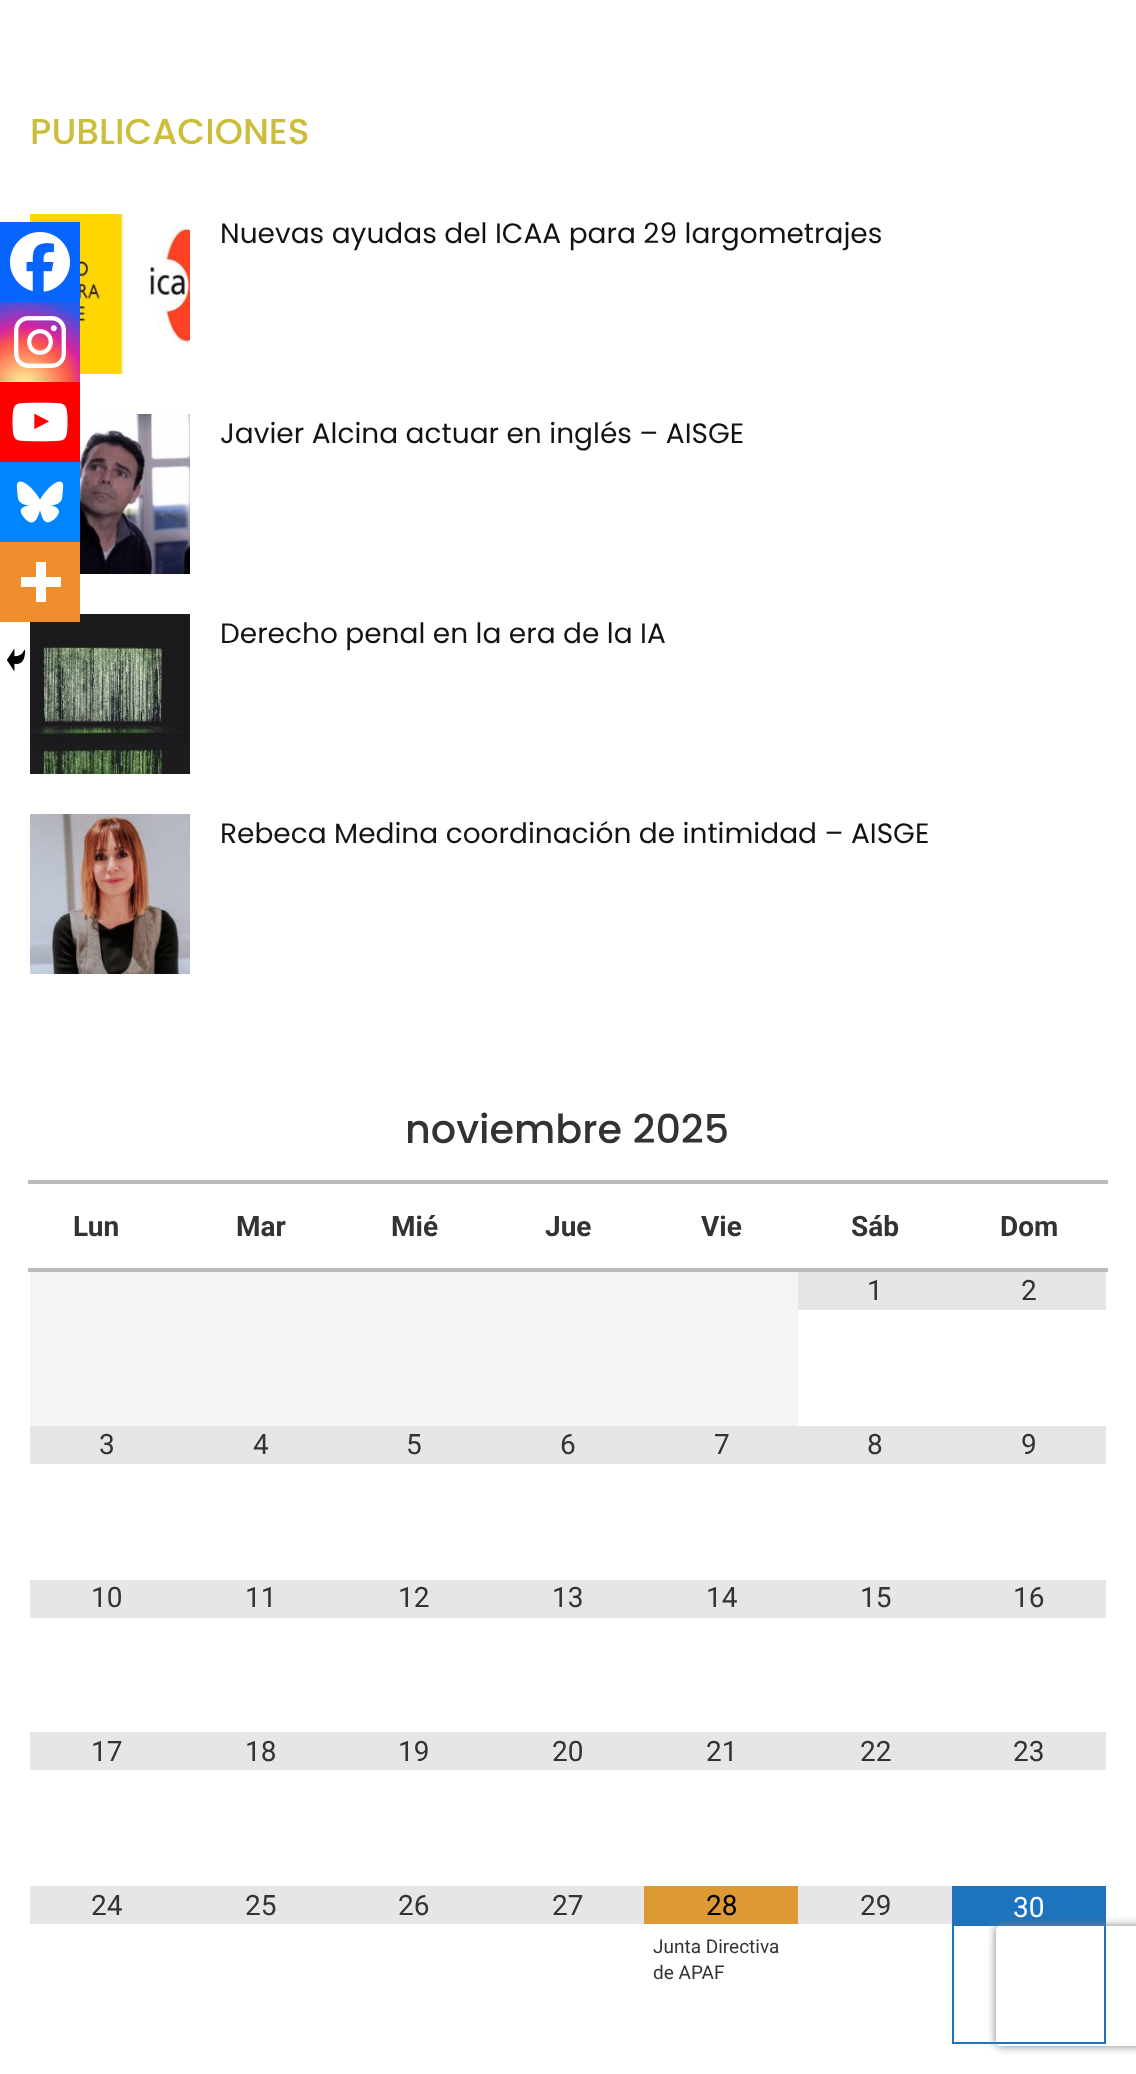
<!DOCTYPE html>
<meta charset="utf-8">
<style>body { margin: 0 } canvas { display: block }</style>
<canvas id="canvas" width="1136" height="2074"></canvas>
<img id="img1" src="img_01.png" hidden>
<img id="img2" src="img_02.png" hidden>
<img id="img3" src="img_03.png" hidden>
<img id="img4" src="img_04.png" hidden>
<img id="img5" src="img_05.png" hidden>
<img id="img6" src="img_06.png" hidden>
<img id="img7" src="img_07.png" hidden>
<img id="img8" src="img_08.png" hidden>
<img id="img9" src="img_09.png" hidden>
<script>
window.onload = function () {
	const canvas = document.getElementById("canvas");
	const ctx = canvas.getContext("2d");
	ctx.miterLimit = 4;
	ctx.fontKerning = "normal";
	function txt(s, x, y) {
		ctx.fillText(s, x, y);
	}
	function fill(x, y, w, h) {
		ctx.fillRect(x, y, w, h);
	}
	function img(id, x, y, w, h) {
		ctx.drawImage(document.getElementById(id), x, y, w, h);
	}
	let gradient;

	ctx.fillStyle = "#FFFFFF";
	fill(0, 0, 1136, 2074);
	img("img1", 30, 214, 160, 160);
	img("img2", 80, 414, 110, 160);
	img("img3", 30, 614, 160, 160);
	img("img4", 30, 814, 160, 160);
	ctx.fillStyle = "#BBBBBB";
	fill(28, 1180, 1080, 4);
	fill(28, 1268, 1080, 4);
	ctx.fillStyle = "#F5F5F5";
	fill(30, 1272, 768, 154);
	ctx.fillStyle = "#E6E6E6";
	fill(798, 1272, 308, 38);
	fill(30, 1426, 1076, 38);
	fill(30, 1580, 1076, 38);
	fill(30, 1732, 1076, 38);
	fill(30, 1886, 614, 38);
	ctx.fillStyle = "#DD9933";
	fill(644, 1886, 154, 38);
	ctx.fillStyle = "#E6E6E6";
	fill(798, 1886, 154, 38);
	ctx.strokeStyle = "#1E73BE";
	ctx.lineWidth = 2;
	ctx.strokeRect(953, 1887, 152, 156);
	ctx.fillStyle = "#1E73BE";
	fill(954, 1888, 150, 38);
	ctx.fillStyle = "#0765FE";
	fill(0, 222, 80, 80);
	img("img5", 10, 232, 60, 60);
	gradient = ctx.createRadialGradient(24, 388, 0, 24, 388, 102);
	gradient.addColorStop(0, "#FDF497");
	gradient.addColorStop(0.05, "#FDF497");
	gradient.addColorStop(0.45, "#FD5949");
	gradient.addColorStop(0.6, "#D6249F");
	gradient.addColorStop(0.9, "#285AEB");
	ctx.fillStyle = gradient;
	fill(0, 302, 80, 80);
	img("img6", 14, 316, 52, 52);
	ctx.fillStyle = "#FF0000";
	fill(0, 382, 80, 80);
	img("img7", 12, 402, 56, 40);
	ctx.fillStyle = "#0085FF";
	fill(0, 462, 80, 80);
	img("img8", 16, 481, 48, 42);
	ctx.fillStyle = "#EE8E2D";
	fill(0, 542, 80, 80);
	ctx.fillStyle = "#FFFFFF";
	ctx.beginPath();
	ctx.moveTo(46, 577);
	ctx.lineTo(46, 562);
	ctx.lineTo(36, 562);
	ctx.lineTo(36, 577);
	ctx.lineTo(21, 577);
	ctx.lineTo(21, 587);
	ctx.lineTo(36, 587);
	ctx.lineTo(36, 602);
	ctx.lineTo(46, 602);
	ctx.lineTo(46, 587);
	ctx.lineTo(61, 587);
	ctx.lineTo(61, 577);
	ctx.closePath();
	ctx.fill("evenodd");
	img("img9", 6, 648, 20, 24);
	ctx.save();
	ctx.beginPath();
	ctx.moveTo(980, 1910);
	ctx.lineTo(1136, 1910);
	ctx.lineTo(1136, 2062);
	ctx.lineTo(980, 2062);
	ctx.closePath();
	ctx.moveTo(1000, 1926);
	ctx.lineTo(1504, 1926);
	ctx.bezierCurveTo(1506, 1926, 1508, 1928, 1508, 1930);
	ctx.lineTo(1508, 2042);
	ctx.bezierCurveTo(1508, 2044, 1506, 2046, 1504, 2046);
	ctx.lineTo(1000, 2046);
	ctx.bezierCurveTo(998, 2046, 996, 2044, 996, 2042);
	ctx.lineTo(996, 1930);
	ctx.bezierCurveTo(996, 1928, 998, 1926, 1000, 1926);
	ctx.closePath();
	ctx.clip("evenodd");
	ctx.fillStyle = "#808080";
	ctx.filter = "blur(5px)";
	ctx.beginPath();
	ctx.roundRect(996, 1926, 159, 120, 4);
	ctx.fill();
	ctx.filter = "none";
	ctx.restore();
	ctx.font = "500 36px Poppins";
	ctx.fillStyle = "#CCBD3A";
	txt("PUBLICACIONES", 30, 144);
	ctx.font = "28px Poppins";
	ctx.fillStyle = "#131313";
	txt("Nuevas ayudas del ICAA para 29 largometrajes", 220, 243);
	txt("Javier Alcina actuar en inglés – AISGE", 220, 443);
	txt("Derecho penal en la era de la IA", 220, 643);
	txt("Rebeca Medina coordinación de intimidad – AISGE", 220, 843);
	ctx.font = "500 39.75px Poppins";
	ctx.fillStyle = "#333333";
	txt("noviembre 2025", 405, 1143);
	ctx.font = "bold 28px Roboto";
	txt("Lun", 73, 1236);
	txt("Mar", 236, 1236);
	txt("Mié", 391, 1236);
	txt("Jue", 545, 1236);
	txt("Vie", 701, 1236);
	txt("Sáb", 851, 1236);
	txt("Dom", 1000, 1236);
	ctx.font = "28px Roboto";
	txt("1", 867, 1300);
	txt("2", 1021, 1300);
	txt("3", 99, 1454);
	txt("4", 253, 1454);
	txt("5", 406, 1454);
	txt("6", 560, 1454);
	txt("7", 714, 1454);
	txt("8", 867, 1454);
	txt("9", 1021, 1454);
	txt("10", 91, 1607);
	txt("11", 245, 1607);
	txt("12", 398, 1607);
	txt("13", 552, 1607);
	txt("14", 706, 1607);
	txt("15", 860, 1607);
	txt("16", 1013, 1607);
	txt("17", 91, 1761);
	txt("18", 245, 1761);
	txt("19", 398, 1761);
	txt("20", 552, 1761);
	txt("21", 706, 1761);
	txt("22", 860, 1761);
	txt("23", 1013, 1761);
	txt("24", 91, 1915);
	txt("25", 245, 1915);
	txt("26", 398, 1915);
	txt("27", 552, 1915);
	ctx.fillStyle = "#000000";
	txt("28", 706, 1915);
	ctx.font = "19px Roboto";
	ctx.fillStyle = "#333333";
	txt("Junta Directiva", 653, 1953);
	txt("de APAF", 653, 1979);
	ctx.font = "28px Roboto";
	txt("29", 860, 1915);
	ctx.fillStyle = "#FFFFFF";
	txt("30", 1013, 1917);
};
</script>
